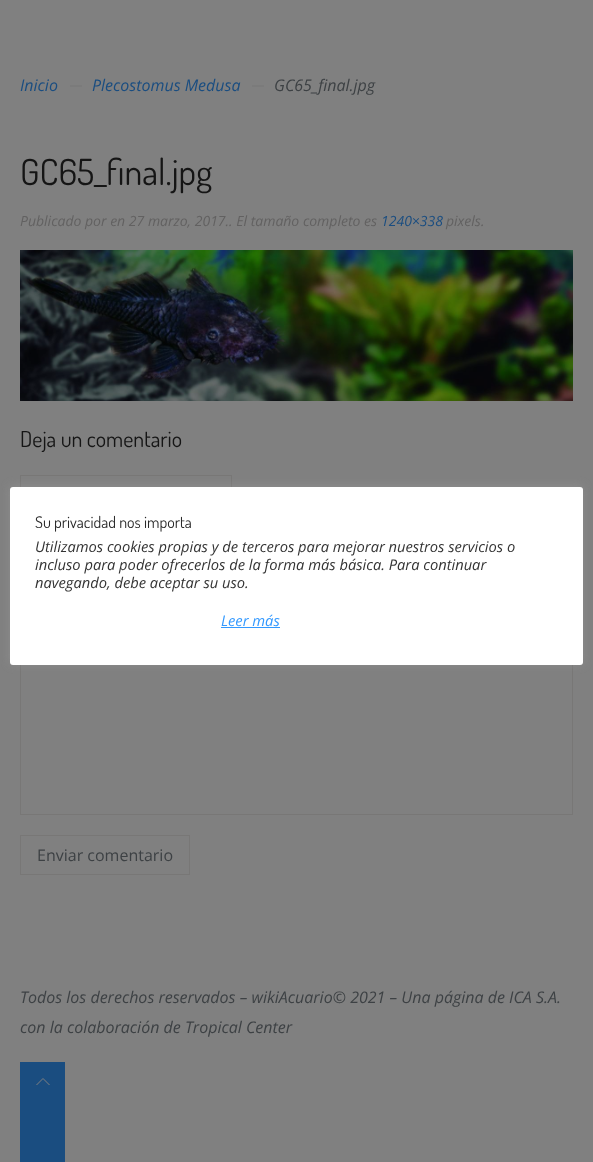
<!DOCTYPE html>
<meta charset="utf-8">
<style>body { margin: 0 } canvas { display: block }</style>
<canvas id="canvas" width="593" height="1162"></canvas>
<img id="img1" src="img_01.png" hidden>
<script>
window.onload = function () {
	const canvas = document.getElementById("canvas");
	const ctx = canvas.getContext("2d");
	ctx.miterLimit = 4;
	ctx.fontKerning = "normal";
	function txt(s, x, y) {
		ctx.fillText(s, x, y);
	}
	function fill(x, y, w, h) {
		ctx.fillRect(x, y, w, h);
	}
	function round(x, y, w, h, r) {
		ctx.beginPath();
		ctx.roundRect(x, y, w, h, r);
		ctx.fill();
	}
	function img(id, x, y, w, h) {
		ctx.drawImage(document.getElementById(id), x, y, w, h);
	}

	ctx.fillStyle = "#808080";
	fill(0, 0, 593, 1162);
	ctx.fillStyle = "#7B7B7B";
	fill(70, 85, 12, 2);
	fill(252, 85, 12, 2);
	img("img1", 20, 250, 553, 151);
	ctx.strokeStyle = "#787776";
	ctx.strokeRect(20.5, 475.5, 211, 39);
	ctx.strokeRect(20.5, 655.5, 552, 159);
	ctx.strokeRect(20.5, 835.5, 169, 39);
	ctx.fillStyle = "#1A4D80";
	fill(20, 1062, 45, 100);
	ctx.beginPath();
	ctx.moveTo(36.5, 1085);
	ctx.lineTo(43, 1078.5);
	ctx.lineTo(49.5, 1085);
	ctx.strokeStyle = "#808080";
	ctx.stroke();
	ctx.fillStyle = "rgba(172, 171, 171, 0.3)";
	ctx.filter = "blur(5px)";
	ctx.beginPath();
	ctx.roundRect(10, 486, 573, 178, 3);
	ctx.fill();
	ctx.filter = "none";
	ctx.fillStyle = "#FFFFFF";
	round(10, 487, 573, 178, 3);
	ctx.fillStyle = "#3399FF";
	fill(221, 627, 59, 1);
	ctx.font = "italic 16px Open Sans";
	ctx.fillStyle = "#1A4D80";
	txt("Inicio", 20, 91);
	txt("Plecostomus Medusa", 92, 91);
	ctx.fillStyle = "#3D4144";
	txt("GC65_final.jpg", 274, 91);
	ctx.font = "36px Dosis";
	ctx.fillStyle = "#151515";
	txt("GC65_final.jpg", 20, 185);
	ctx.font = "italic 14px Open Sans";
	ctx.fillStyle = "#626161";
	txt("Publicado por en 27 marzo, 2017.. El tamaño completo es", 20, 226);
	ctx.fillStyle = "#1A4D80";
	txt("1240×338", 381, 226);
	ctx.fillStyle = "#626161";
	txt("pixels.", 446, 226);
	ctx.font = "22px Dosis";
	ctx.fillStyle = "#151515";
	txt("Deja un comentario", 20, 447);
	ctx.font = "16px Open Sans";
	ctx.fillStyle = "#3D4144";
	txt("Enviar comentario", 37, 861);
	ctx.font = "italic 16px Open Sans";
	txt("Todos los derechos reservados – wikiAcuario© 2021 – Una página de ICA S.A.", 20, 1003);
	txt("con la colaboración de Tropical Center", 20, 1033);
	ctx.font = "16px Dosis";
	ctx.fillStyle = "#2A2A2A";
	txt("Su privacidad nos importa", 35, 528);
	ctx.font = "italic 14.7px Open Sans";
	ctx.fillStyle = "#333333";
	txt("Utilizamos cookies propias y de terceros para mejorar nuestros servicios o", 35, 552);
	txt("incluso para poder ofrecerlos de la forma más básica. Para continuar", 35, 570);
	txt("navegando, debe aceptar su uso.", 35, 588);
	ctx.fillStyle = "#3399FF";
	txt("Leer más", 221, 626);
};
</script>
